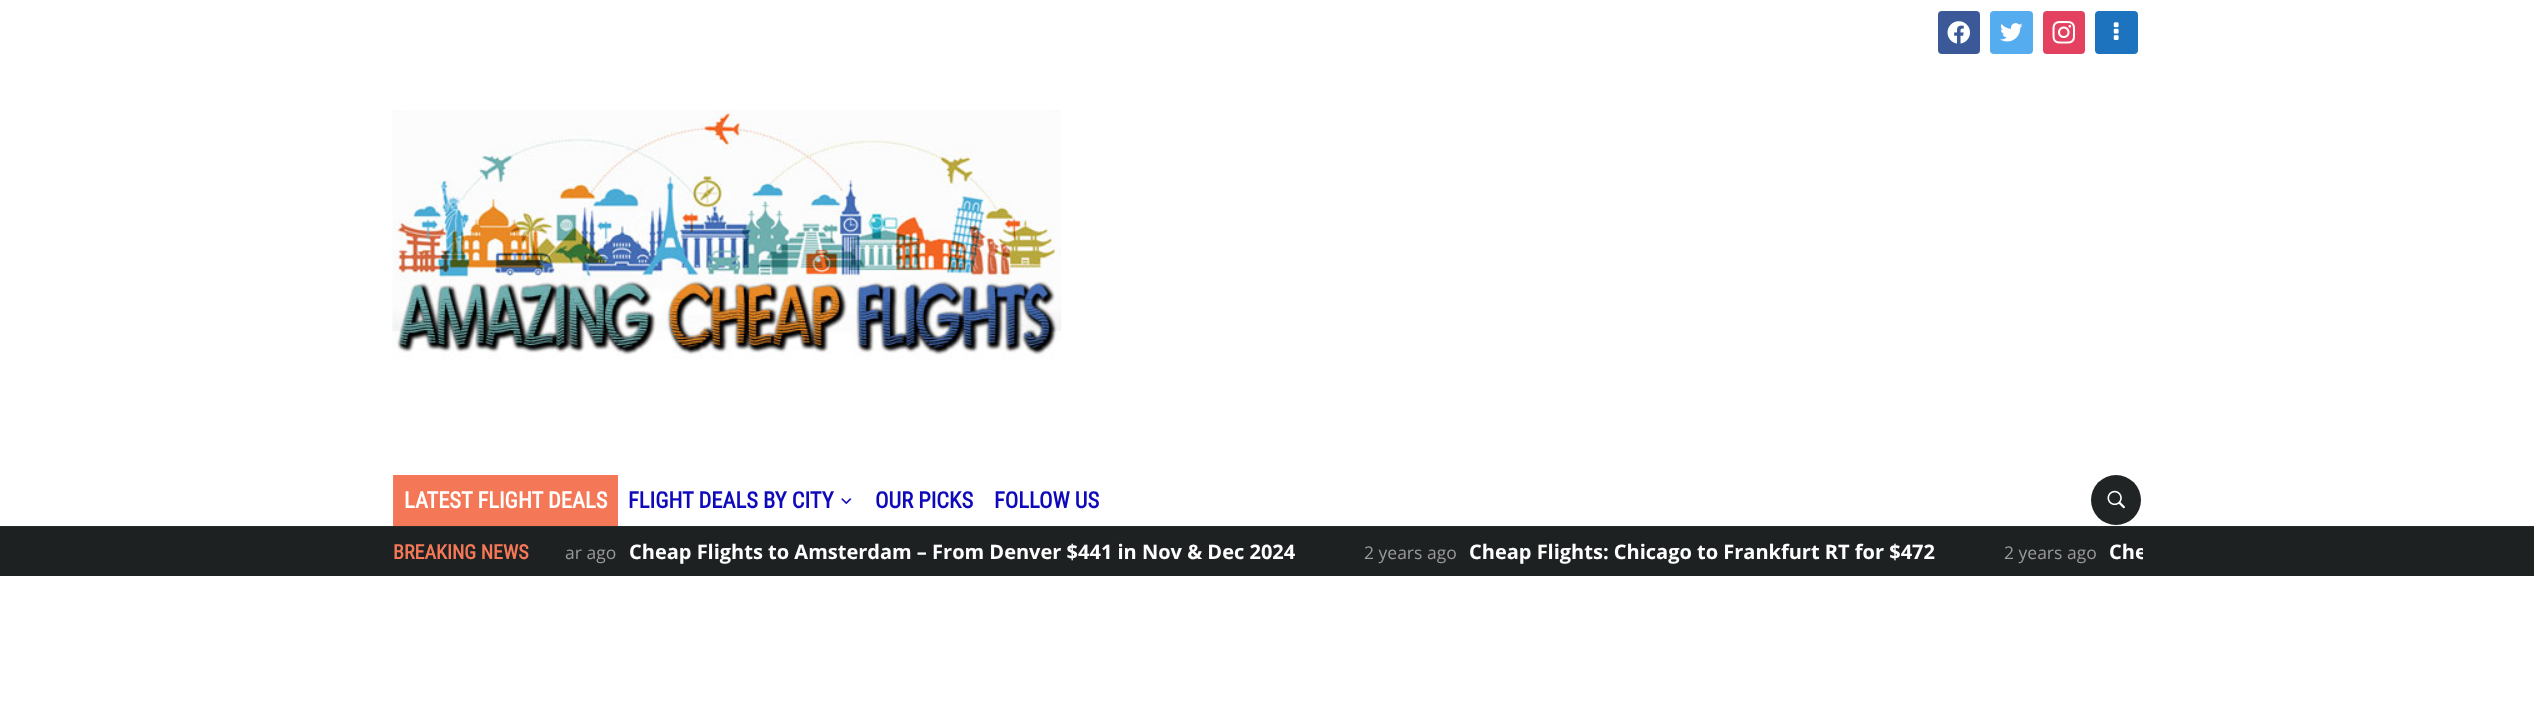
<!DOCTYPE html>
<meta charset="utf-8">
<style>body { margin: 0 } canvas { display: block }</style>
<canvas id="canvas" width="2534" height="719"></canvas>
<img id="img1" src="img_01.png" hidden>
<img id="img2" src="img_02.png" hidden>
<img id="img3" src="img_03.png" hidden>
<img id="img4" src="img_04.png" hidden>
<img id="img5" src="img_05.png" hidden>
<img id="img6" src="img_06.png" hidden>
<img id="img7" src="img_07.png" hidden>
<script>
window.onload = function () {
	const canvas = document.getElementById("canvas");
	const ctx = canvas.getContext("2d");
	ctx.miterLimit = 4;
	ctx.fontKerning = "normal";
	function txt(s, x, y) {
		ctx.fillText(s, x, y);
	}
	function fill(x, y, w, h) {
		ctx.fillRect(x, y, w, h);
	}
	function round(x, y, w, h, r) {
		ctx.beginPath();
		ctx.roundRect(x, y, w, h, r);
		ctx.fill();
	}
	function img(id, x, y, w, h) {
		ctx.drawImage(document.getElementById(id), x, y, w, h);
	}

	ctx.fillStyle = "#FFFFFF";
	fill(0, 0, 2534, 719);
	ctx.fillStyle = "#3B5998";
	round(1938, 11, 42, 43, 4);
	img("img1", 1947, 21, 23, 23);
	ctx.fillStyle = "#55ACEE";
	round(1990, 11, 43, 43, 4);
	img("img2", 2000, 23, 23, 19);
	ctx.fillStyle = "#E4405F";
	round(2043, 11, 42, 43, 4);
	img("img3", 2052, 21, 24, 23);
	ctx.fillStyle = "#1E73BE";
	round(2095, 11, 43, 43, 4);
	img("img4", 2113, 22, 6, 18);
	img("img5", 392, 110, 670, 250);
	ctx.fillStyle = "#F47857";
	fill(394, 475, 224, 51);
	ctx.fillStyle = "#F57F5F";
	fill(393, 475, 1, 51);
	img("img6", 841, 498, 11, 7);
	ctx.fillStyle = "#212425";
	ctx.beginPath();
	ctx.arc(2116, 500, 25, 0, Math.PI * 2);
	ctx.fill();
	img("img7", 2107, 490, 18, 19);
	ctx.fillStyle = "#1E2122";
	fill(0, 527, 2534, 49);
	ctx.fillStyle = "#292C2D";
	fill(0, 526, 2534, 1);
	ctx.font = "bold 22.5px Roboto Condensed";
	ctx.fillStyle = "#FFFFFF";
	txt("LATEST FLIGHT DEALS", 404, 508);
	ctx.fillStyle = "#0F09BC";
	txt("FLIGHT DEALS BY CITY", 628, 508);
	txt("OUR PICKS", 875, 508);
	txt("FOLLOW US", 994, 508);
	ctx.font = "bold 20px Roboto Condensed";
	ctx.fillStyle = "#F47857";
	txt("BREAKING NEWS", 393, 559);
	ctx.font = "17.5px Open Sans";
	ctx.fillStyle = "#999999";
	txt("ar ago", 565, 559);
	ctx.font = "bold 20px Open Sans";
	ctx.fillStyle = "#FFFFFF";
	txt("Cheap Flights to Amsterdam – From Denver $441 in Nov & Dec 2024", 629, 559);
	ctx.font = "17.5px Open Sans";
	ctx.fillStyle = "#999999";
	txt("2 years ago", 1364, 559);
	ctx.font = "bold 20px Open Sans";
	ctx.fillStyle = "#FFFFFF";
	txt("Cheap Flights: Chicago to Frankfurt RT for $472", 1469, 559);
	ctx.font = "17.5px Open Sans";
	ctx.fillStyle = "#999999";
	txt("2 years ago", 2004, 559);
	ctx.save();
	ctx.beginPath();
	ctx.rect(564, 531, 1579, 44);
	ctx.clip();
	ctx.font = "bold 20px Open Sans";
	ctx.fillStyle = "#FFFFFF";
	txt("Che", 2109, 559);
	ctx.restore();
};
</script>
